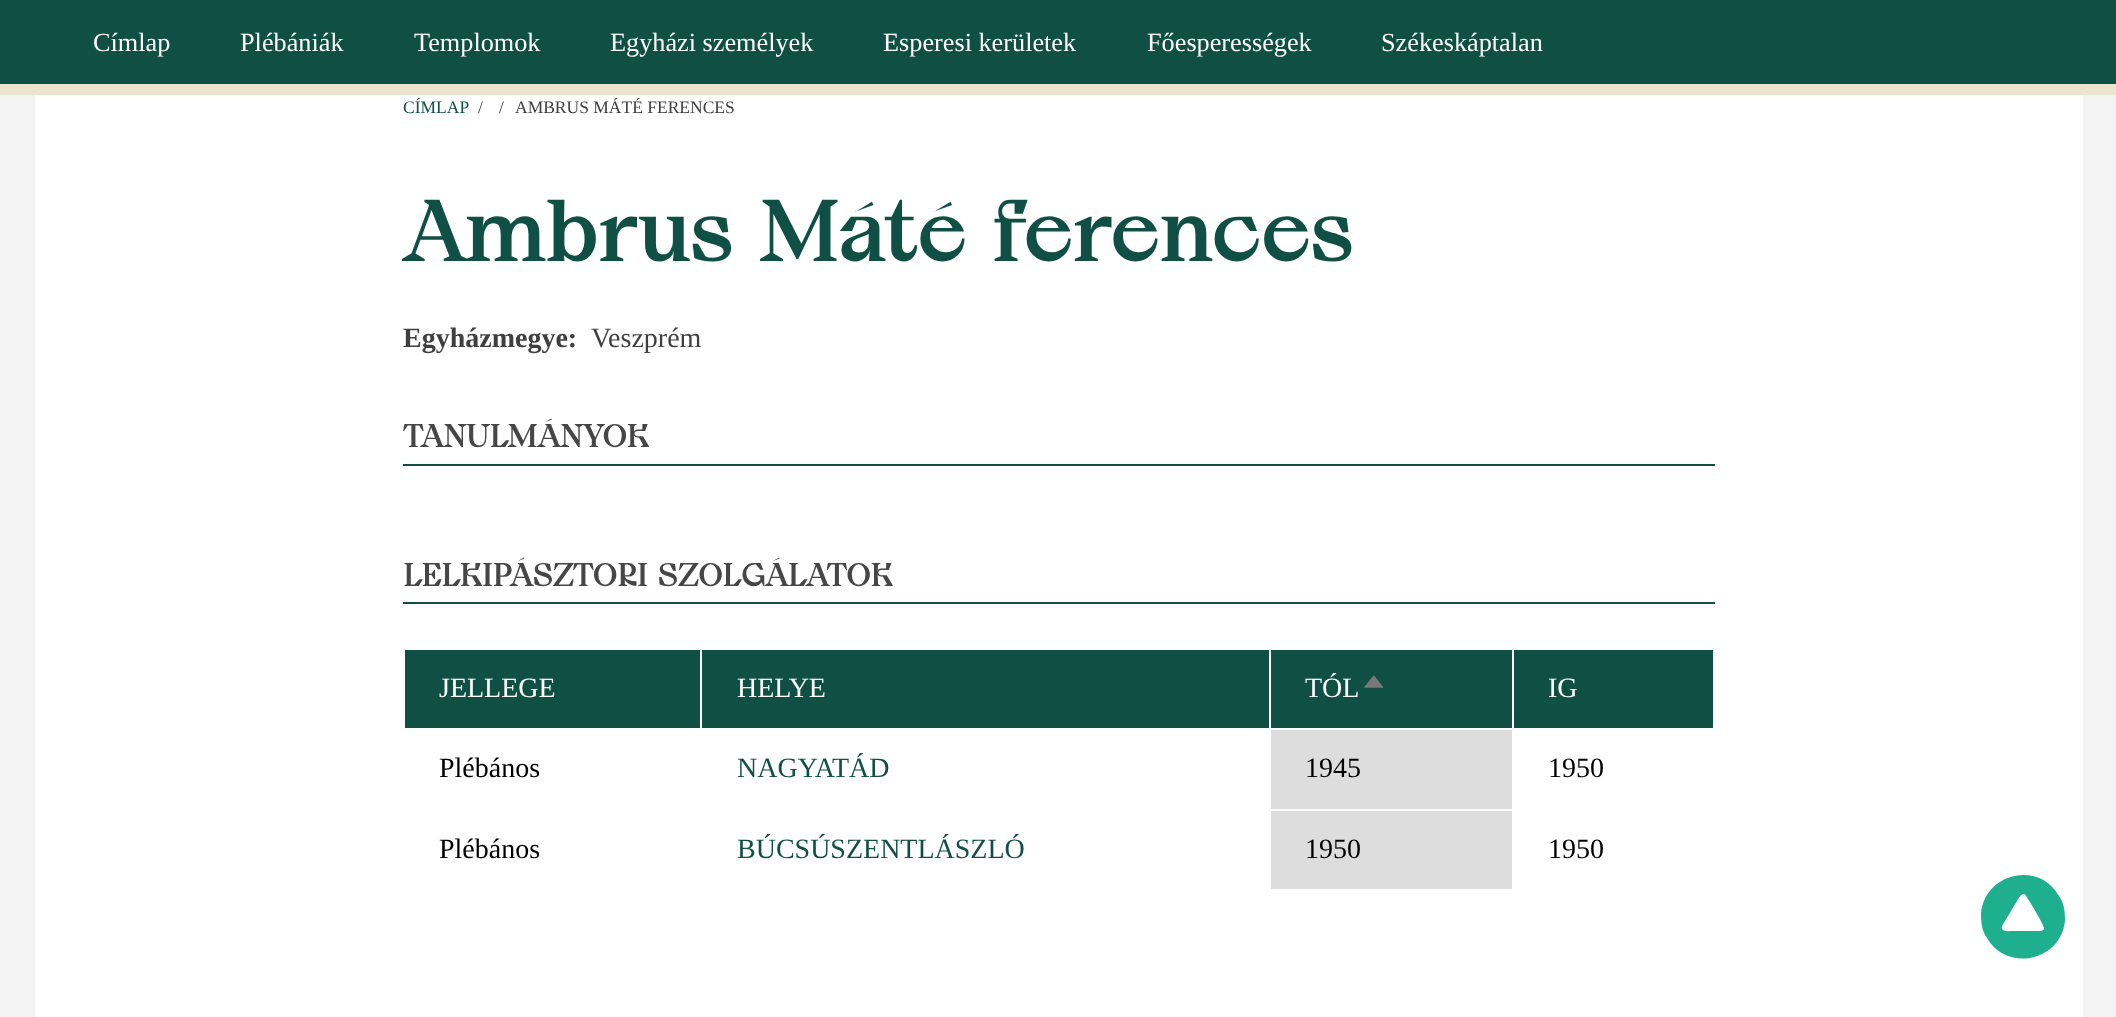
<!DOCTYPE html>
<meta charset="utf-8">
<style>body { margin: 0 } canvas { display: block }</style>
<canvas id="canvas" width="2116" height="1017"></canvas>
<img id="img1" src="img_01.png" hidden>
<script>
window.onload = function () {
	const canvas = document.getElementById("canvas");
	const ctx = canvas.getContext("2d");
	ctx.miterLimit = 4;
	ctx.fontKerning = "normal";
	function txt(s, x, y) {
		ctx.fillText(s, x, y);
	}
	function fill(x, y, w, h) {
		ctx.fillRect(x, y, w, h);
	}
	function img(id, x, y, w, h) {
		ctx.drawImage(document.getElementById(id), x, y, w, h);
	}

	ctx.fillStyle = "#F3F3F3";
	fill(0, 0, 2116, 1017);
	ctx.fillStyle = "#105044";
	fill(0, 0, 2116, 84);
	ctx.fillStyle = "#E9E5CE";
	fill(0, 84, 2116, 11);
	ctx.fillStyle = "#FFFFFF";
	fill(35, 95, 2048, 922);
	ctx.fillStyle = "#105044";
	fill(403, 464, 1312, 2);
	fill(403, 602, 1312, 2);
	fill(405, 650, 295, 78);
	fill(702, 650, 567, 78);
	fill(1271, 650, 241, 78);
	img("img1", 1364, 675, 20, 13);
	fill(1514, 650, 199, 78);
	ctx.fillStyle = "#DDDDDD";
	fill(1271, 730, 241, 79);
	fill(1271, 811, 241, 78);
	ctx.fillStyle = "#1DAF8E";
	ctx.beginPath();
	ctx.moveTo(1987, 938);
	ctx.bezierCurveTo(1982, 931, 1981, 923, 1981, 914);
	ctx.bezierCurveTo(1984, 873, 2039, 860, 2059, 896);
	ctx.bezierCurveTo(2064, 903, 2065, 911, 2065, 920);
	ctx.bezierCurveTo(2062, 961, 2007, 973, 1987, 938);
	ctx.closePath();
	ctx.moveTo(2026, 896);
	ctx.bezierCurveTo(2023, 890, 2018, 899, 2017, 901);
	ctx.lineTo(2005, 921);
	ctx.bezierCurveTo(2004, 923, 2001, 926, 2002, 929);
	ctx.bezierCurveTo(2004, 932, 2009, 931, 2011, 931);
	ctx.lineTo(2035, 931);
	ctx.bezierCurveTo(2037, 931, 2044, 932, 2044, 928);
	ctx.bezierCurveTo(2044, 925, 2029, 900, 2026, 896);
	ctx.closePath();
	ctx.fill();
	ctx.font = "26.25px Liberation Serif";
	ctx.fillStyle = "#FFFFFF";
	txt("Címlap", 93, 51);
	txt("Plébániák", 240, 51);
	txt("Templomok", 414, 51);
	txt("Egyházi személyek", 610, 51);
	txt("Esperesi kerületek", 883, 51);
	txt("Főesperességek", 1147, 51);
	txt("Székeskáptalan", 1381, 51);
	ctx.font = "17.5px Liberation Serif";
	ctx.fillStyle = "#105044";
	txt("CÍMLAP", 403, 113);
	ctx.fillStyle = "#3F3F3F";
	txt("/", 478, 113);
	txt("/", 499, 113);
	txt("AMBRUS MÁTÉ FERENCES", 515, 113);
	ctx.font = "bold 84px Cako";
	ctx.fillStyle = "#105044";
	txt("Ambrus Máté ferences", 403, 261);
	ctx.font = "bold 28px Liberation Serif";
	ctx.fillStyle = "#3F3F3F";
	txt("Egyházmegye:", 403, 347);
	ctx.font = "28px Liberation Serif";
	txt("Veszprém", 591, 347);
	ctx.font = "bold 31.5px Cako";
	ctx.fillStyle = "#464646";
	txt("TANULMÁNYOK", 403, 447);
	txt("LELKIPÁSZTORI SZOLGÁLATOK", 403, 586);
	ctx.font = "28px Liberation Serif";
	ctx.fillStyle = "#FFFFFF";
	txt("JELLEGE", 439, 697);
	txt("HELYE", 737, 697);
	txt("TÓL", 1305, 697);
	txt("IG", 1548, 697);
	ctx.fillStyle = "#000000";
	txt("Plébános", 439, 777);
	ctx.fillStyle = "#105044";
	txt("NAGYATÁD", 737, 777);
	ctx.fillStyle = "#000000";
	txt("1945", 1305, 777);
	txt("1950", 1548, 777);
	txt("Plébános", 439, 858);
	ctx.fillStyle = "#105044";
	txt("BÚCSÚSZENTLÁSZLÓ", 737, 858);
	ctx.fillStyle = "#000000";
	txt("1950", 1305, 858);
	txt("1950", 1548, 858);
};
</script>
